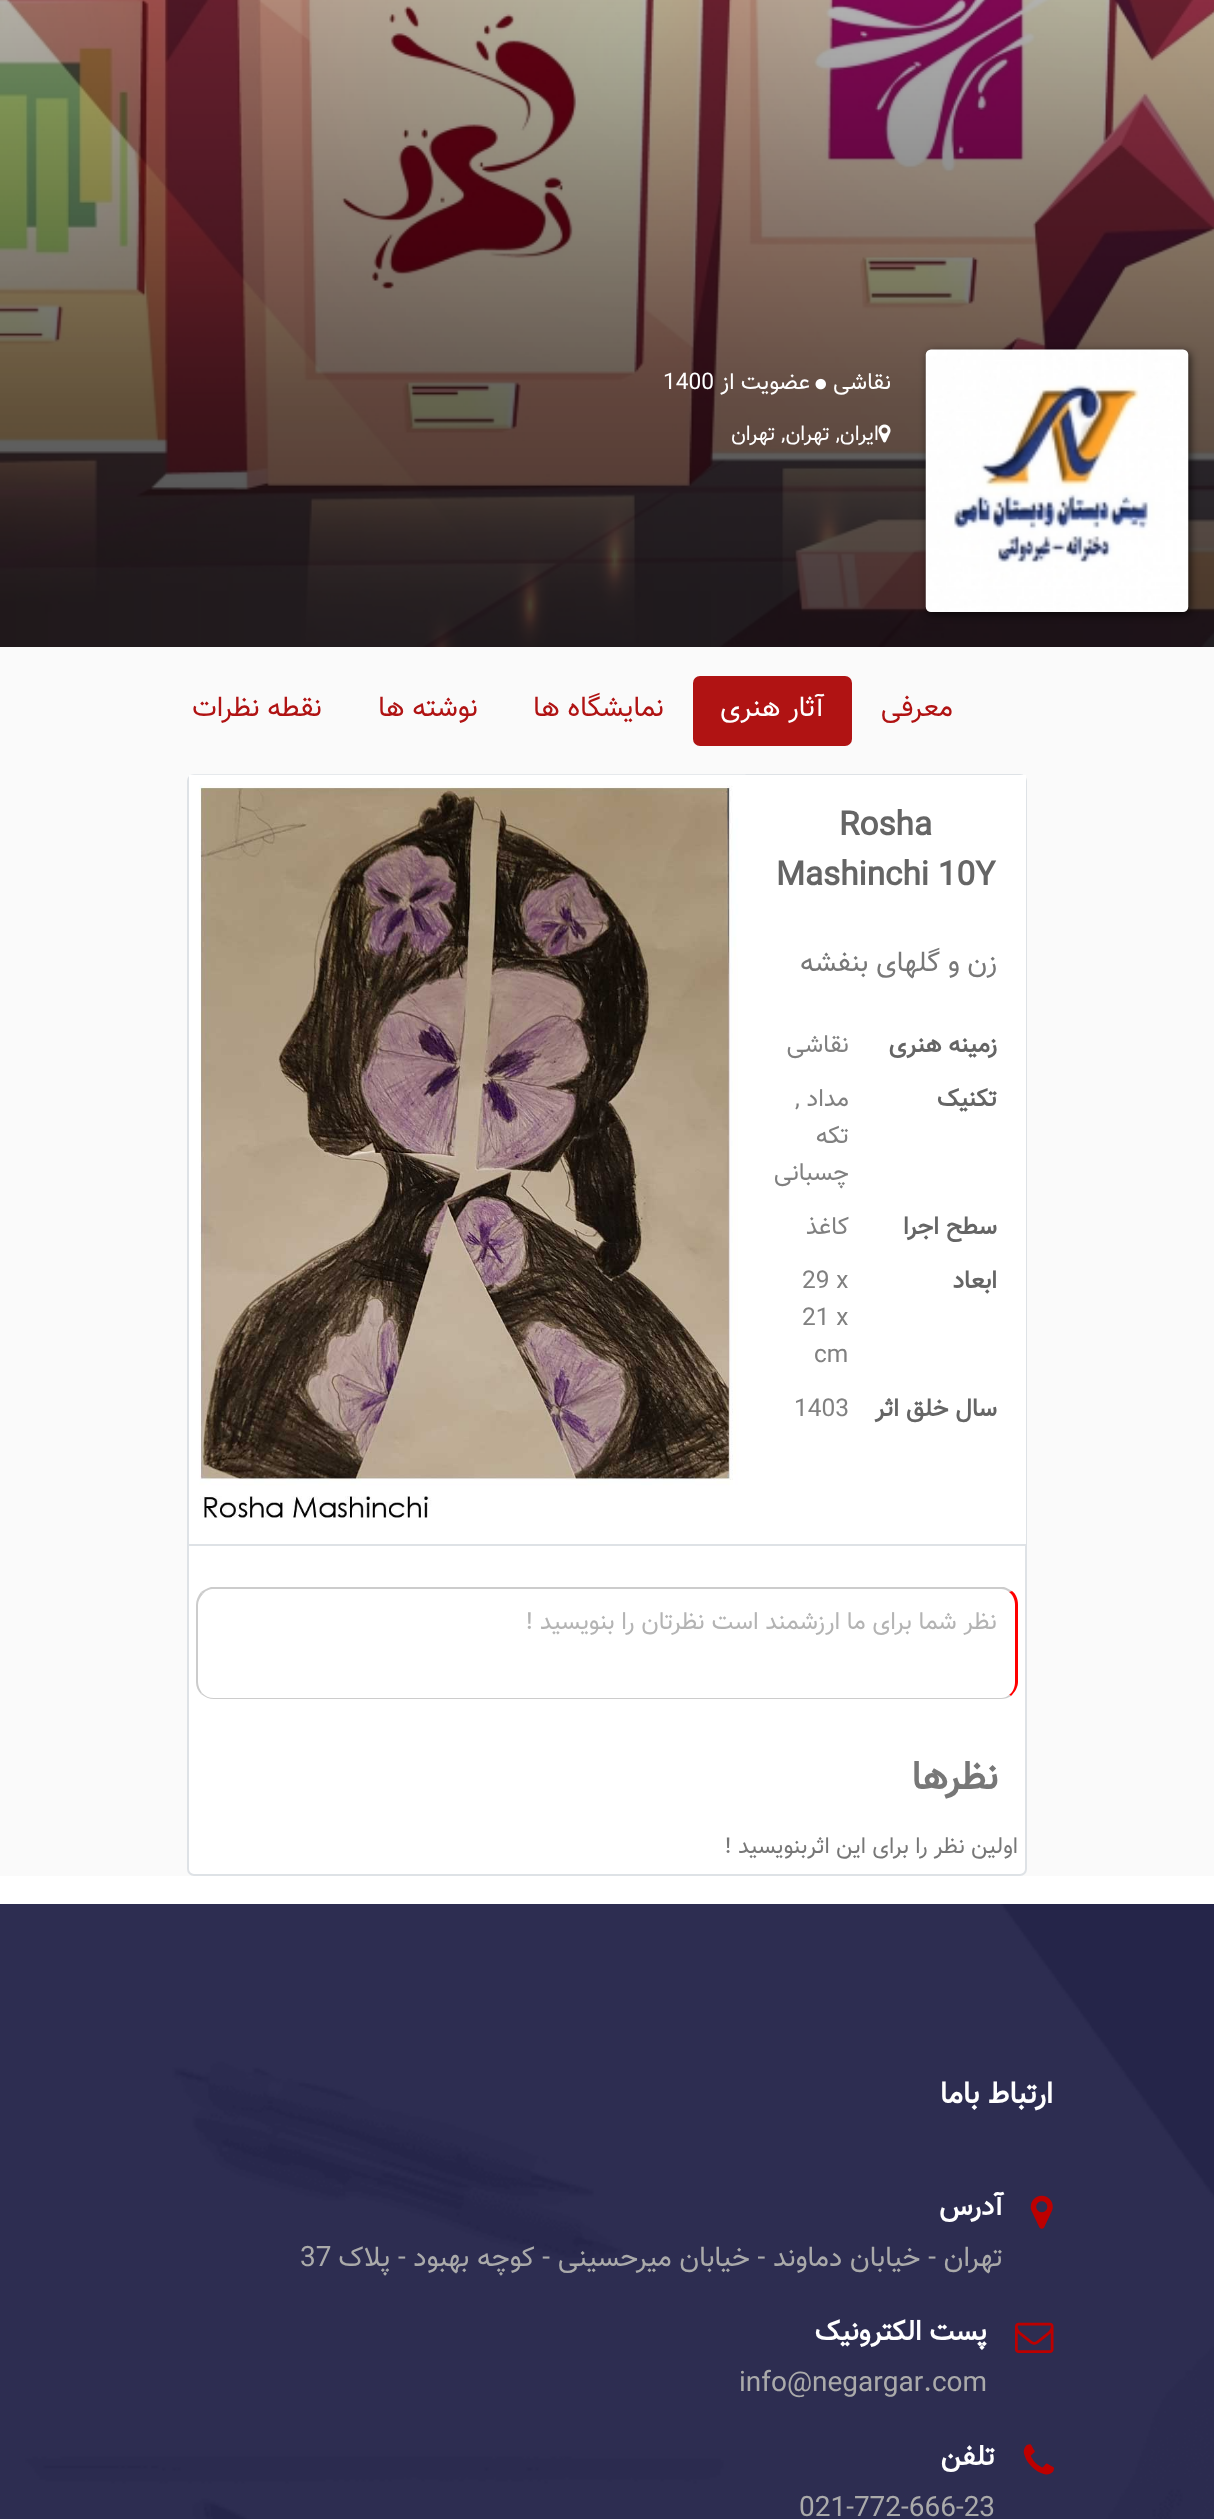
<!DOCTYPE html>
<meta charset="utf-8">
<style>body { margin: 0 } canvas { display: block }</style>
<canvas id="canvas" width="1214" height="2519"></canvas>
<img id="img1" src="img_01.png" hidden>
<img id="img2" src="img_02.png" hidden>
<img id="img3" src="img_03.png" hidden>
<img id="img4" src="img_04.png" hidden>
<img id="img5" src="img_05.png" hidden>
<img id="img6" src="img_06.png" hidden>
<img id="img7" src="img_07.png" hidden>
<img id="img8" src="img_08.png" hidden>
<img id="img9" src="img_09.png" hidden>
<script>
window.onload = function () {
	const canvas = document.getElementById("canvas");
	const ctx = canvas.getContext("2d");
	ctx.miterLimit = 4;
	ctx.fontKerning = "normal";
	function txt(s, x, y) {
		ctx.fillText(s, x, y);
	}
	function fill(x, y, w, h) {
		ctx.fillRect(x, y, w, h);
	}
	function round(x, y, w, h, r) {
		ctx.beginPath();
		ctx.roundRect(x, y, w, h, r);
		ctx.fill();
	}
	function img(id, x, y, w, h) {
		ctx.drawImage(document.getElementById(id), x, y, w, h);
	}

	ctx.fillStyle = "#FFFFFF";
	fill(0, 0, 1214, 2519);
	ctx.fillStyle = "#FAFAFA";
	fill(0, 647, 1214, 1229);
	img("img1", 0, 0, 1214, 647);
	ctx.fillStyle = "rgba(0, 0, 0, 0.7)";
	ctx.filter = "blur(4.5px)";
	ctx.beginPath();
	ctx.roundRect(928, 352, 262, 262, 5);
	ctx.fill();
	ctx.filter = "none";
	img("img2", 925, 349, 264, 263);
	img("img3", 815, 378, 11, 12);
	img("img4", 878, 424, 13, 19);
	ctx.fillStyle = "#B01313";
	round(693, 676, 159, 70, 7);
	ctx.fillStyle = "#FFFFFF";
	ctx.beginPath();
	ctx.roundRect(188, 775, 838, 1100, 6);
	ctx.fill();
	ctx.strokeStyle = "#DEE2E6";
	ctx.lineWidth = 2;
	ctx.stroke();
	fill(189, 775, 837, 769);
	img("img5", 191, 774, 555, 744);
	ctx.fillStyle = "#DEE2E6";
	fill(189, 1544, 837, 2);
	ctx.fillStyle = "#CCCCCC";
	ctx.beginPath();
	ctx.moveTo(214, 1589);
	ctx.bezierCurveTo(209, 1589, 205, 1591, 203, 1594);
	ctx.lineTo(201, 1592);
	ctx.bezierCurveTo(204, 1590, 207, 1588, 211, 1587);
	ctx.lineTo(1004, 1587);
	ctx.bezierCurveTo(1007, 1588, 1009, 1589, 1012, 1591);
	ctx.lineTo(1009, 1592);
	ctx.bezierCurveTo(1007, 1590, 1004, 1589, 1001, 1589);
	ctx.closePath();
	ctx.fill();
	ctx.fillStyle = "#FF0000";
	ctx.beginPath();
	ctx.moveTo(1012, 1591);
	ctx.bezierCurveTo(1016, 1594, 1018, 1599, 1018, 1605);
	ctx.lineTo(1018, 1682);
	ctx.bezierCurveTo(1018, 1687, 1015, 1692, 1011, 1696);
	ctx.lineTo(1009, 1695);
	ctx.bezierCurveTo(1013, 1692, 1015, 1687, 1015, 1682);
	ctx.lineTo(1015, 1605);
	ctx.bezierCurveTo(1015, 1600, 1013, 1595, 1009, 1592);
	ctx.closePath();
	ctx.fill();
	ctx.fillStyle = "#CCCCCC";
	ctx.beginPath();
	ctx.moveTo(1011, 1696);
	ctx.bezierCurveTo(1008, 1698, 1005, 1699, 1001, 1699);
	ctx.lineTo(214, 1699);
	ctx.bezierCurveTo(209, 1699, 205, 1697, 201, 1694);
	ctx.lineTo(202, 1693);
	ctx.bezierCurveTo(205, 1696, 209, 1698, 214, 1698);
	ctx.lineTo(1001, 1698);
	ctx.bezierCurveTo(1004, 1698, 1007, 1697, 1009, 1695);
	ctx.closePath();
	ctx.fill();
	ctx.beginPath();
	ctx.moveTo(196, 1605);
	ctx.lineTo(196, 1682);
	ctx.bezierCurveTo(196, 1687, 198, 1691, 201, 1694);
	ctx.lineTo(202, 1693);
	ctx.bezierCurveTo(200, 1690, 198, 1686, 198, 1682);
	ctx.lineTo(198, 1605);
	ctx.bezierCurveTo(198, 1601, 200, 1597, 203, 1594);
	ctx.lineTo(201, 1592);
	ctx.bezierCurveTo(198, 1596, 196, 1600, 196, 1605);
	ctx.closePath();
	ctx.fill();
	ctx.fillStyle = "#26264B";
	fill(0, 1904, 1214, 615);
	img("img6", 0, 1904, 1214, 615);
	img("img7", 1030, 2195, 23, 34);
	img("img8", 1015, 2322, 39, 31);
	img("img9", 1023, 2444, 31, 31);
	ctx.direction = "rtl";
	ctx.font = "22.75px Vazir";
	ctx.fillStyle = "#FFFFFF";
	txt("نقاشی", 891, 389);
	txt("عضویت از", 810, 389);
	ctx.direction = "ltr";
	txt("1400", 663, 389);
	ctx.direction = "rtl";
	ctx.font = "21px Vazir";
	txt("ایران, تهران, تهران", 879, 440);
	ctx.font = "28px Vazir";
	ctx.fillStyle = "#B01313";
	txt("معرفی", 953, 716);
	ctx.fillStyle = "#FFFFFF";
	txt("آثار هنری", 824, 716);
	ctx.fillStyle = "#B01313";
	txt("نمایشگاه ها", 664, 716);
	txt("نوشته ها", 478, 716);
	txt("نقطه نظرات", 322, 716);
	ctx.direction = "ltr";
	ctx.font = "bold 33.25px Vazir";
	ctx.fillStyle = "#656565";
	txt("Rosha", 839, 835);
	txt("Mashinchi 10Y", 776, 885);
	ctx.direction = "rtl";
	ctx.font = "28px Vazir";
	ctx.fillStyle = "#777777";
	txt("زن و گلهای بنفشه", 997, 971);
	ctx.font = "bold 24.5px Vazir";
	ctx.fillStyle = "#656565";
	txt("زمینه هنری", 997, 1052);
	ctx.font = "24.5px Vazir";
	ctx.fillStyle = "#808080";
	txt("نقاشی", 849, 1052);
	ctx.font = "bold 24.5px Vazir";
	ctx.fillStyle = "#656565";
	txt("تکنیک", 997, 1106);
	ctx.font = "24.5px Vazir";
	ctx.fillStyle = "#808080";
	txt("مداد ,", 849, 1106);
	txt("تکه", 849, 1143);
	txt("چسبانی", 849, 1180);
	ctx.font = "bold 24.5px Vazir";
	ctx.fillStyle = "#656565";
	txt("سطح اجرا", 997, 1234);
	ctx.font = "24.5px Vazir";
	ctx.fillStyle = "#808080";
	txt("کاغذ", 849, 1234);
	ctx.font = "bold 24.5px Vazir";
	ctx.fillStyle = "#656565";
	txt("ابعاد", 997, 1288);
	ctx.direction = "ltr";
	ctx.font = "24.5px Vazir";
	ctx.fillStyle = "#808080";
	txt("29 x", 802, 1288);
	txt("21 x", 802, 1325);
	txt("cm", 814, 1362);
	ctx.direction = "rtl";
	ctx.font = "bold 24.5px Vazir";
	ctx.fillStyle = "#656565";
	txt("سال خلق اثر", 997, 1416);
	ctx.direction = "ltr";
	ctx.font = "24.5px Vazir";
	ctx.fillStyle = "#808080";
	txt("1403", 794, 1416);
	ctx.direction = "rtl";
	ctx.fillStyle = "#B4B4B4";
	txt("نظر شما برای ما ارزشمند است نظرتان را بنویسید !", 997, 1629);
	ctx.font = "bold 39px Vazir";
	ctx.fillStyle = "#777777";
	txt("نظرها", 998, 1789);
	ctx.font = "22.75px Vazir";
	txt("اولین نظر را برای این اثربنویسید !", 1018, 1853);
	ctx.font = "bold 30px Vazir";
	ctx.fillStyle = "#FFFFFF";
	txt("ارتباط باما", 1053, 2103);
	ctx.font = "bold 28px Vazir";
	txt("آدرس", 1003, 2215);
	ctx.font = "28px Vazir";
	ctx.fillStyle = "#AAAAAA";
	txt("تهران - خیابان دماوند - خیابان میرحسینی - کوچه بهبود - پلاک", 1003, 2266);
	ctx.direction = "ltr";
	txt("37", 300, 2266);
	ctx.direction = "rtl";
	ctx.font = "bold 28px Vazir";
	ctx.fillStyle = "#FFFFFF";
	txt("پست الکترونیک", 987, 2340);
	ctx.direction = "ltr";
	ctx.font = "28px Vazir";
	ctx.fillStyle = "#AAAAAA";
	txt("info@negargar.com", 739, 2391);
	ctx.direction = "rtl";
	ctx.font = "bold 28px Vazir";
	ctx.fillStyle = "#FFFFFF";
	txt("تلفن", 995, 2465);
	ctx.direction = "ltr";
	ctx.font = "28px Vazir";
	ctx.fillStyle = "#AAAAAA";
	txt("021-772-666-23", 799, 2516);
};
</script>
